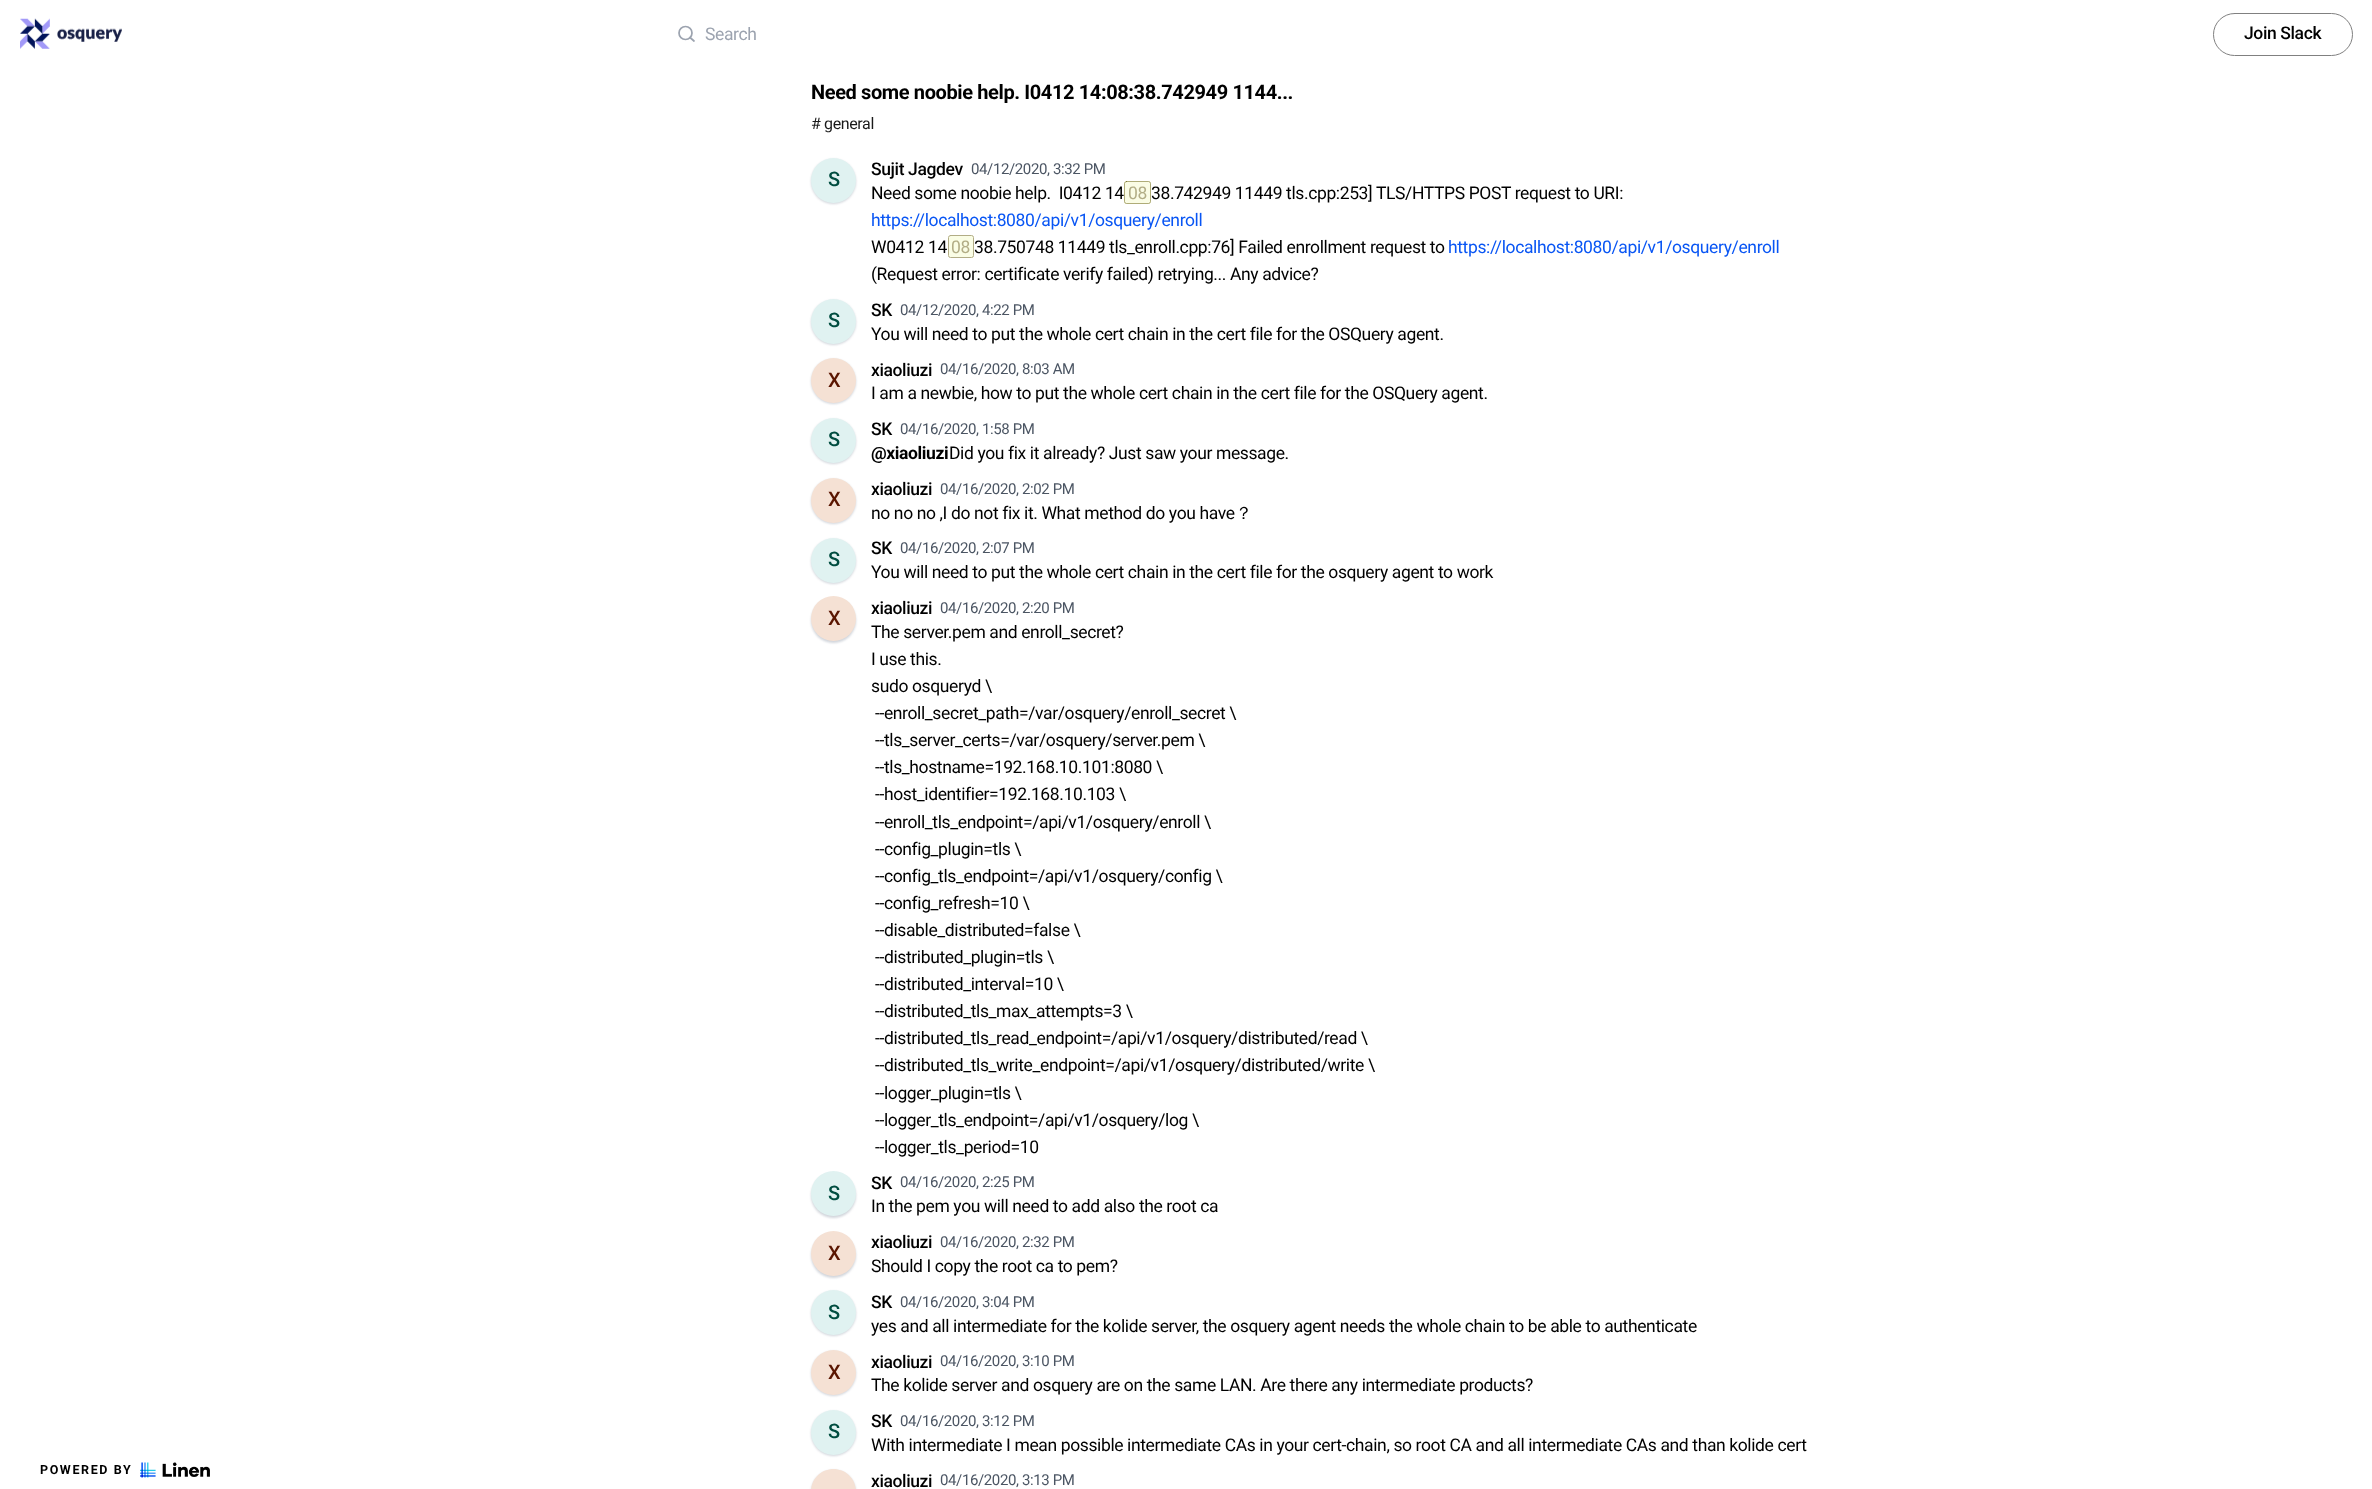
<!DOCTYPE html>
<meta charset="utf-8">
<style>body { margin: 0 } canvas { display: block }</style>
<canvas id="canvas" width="2372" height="1489"></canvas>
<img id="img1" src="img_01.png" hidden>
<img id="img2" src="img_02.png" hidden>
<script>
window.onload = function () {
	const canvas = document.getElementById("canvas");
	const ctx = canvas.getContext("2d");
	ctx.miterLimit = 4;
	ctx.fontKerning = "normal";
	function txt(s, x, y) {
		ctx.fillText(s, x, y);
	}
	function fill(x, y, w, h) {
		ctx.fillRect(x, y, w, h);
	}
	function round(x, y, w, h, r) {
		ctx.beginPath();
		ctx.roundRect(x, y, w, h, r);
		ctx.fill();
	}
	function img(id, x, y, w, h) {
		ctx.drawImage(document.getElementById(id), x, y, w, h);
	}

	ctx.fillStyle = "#FFFFFF";
	fill(0, 0, 2372, 1489);
	img("img1", 20, 18, 102, 31);
	ctx.beginPath();
	ctx.arc(685.5, 33, 6.5, 0, Math.PI * 2);
	ctx.strokeStyle = "#9CA3AF";
	ctx.lineWidth = 1.7;
	ctx.stroke();
	ctx.beginPath();
	ctx.moveTo(694, 41);
	ctx.lineTo(690, 37.5);
	ctx.lineCap = "round";
	ctx.lineJoin = "round";
	ctx.stroke();
	ctx.beginPath();
	ctx.roundRect(2213.5, 13.5, 139, 42, 21);
	ctx.strokeStyle = "#808080";
	ctx.lineWidth = 1;
	ctx.lineJoin = "miter";
	ctx.stroke();
	img("img2", 140, 1462, 70, 16);
	ctx.fillStyle = "#D1D5DB";
	ctx.filter = "blur(1px)";
	ctx.beginPath();
	ctx.roundRect(811, 159, 45, 45, 22.5);
	ctx.fill();
	ctx.filter = "none";
	ctx.fillStyle = "#E0F2F1";
	ctx.beginPath();
	ctx.arc(833.5, 180.5, 22.5, 0, Math.PI * 2);
	ctx.fill();
	ctx.fillStyle = "#FAFDE5";
	ctx.beginPath();
	ctx.roundRect(948.5, 235.5, 25, 22, 2);
	ctx.fill();
	ctx.strokeStyle = "#B2AD86";
	ctx.stroke();
	ctx.fillStyle = "#D1D5DB";
	ctx.filter = "blur(1px)";
	ctx.beginPath();
	ctx.roundRect(811, 300, 45, 45, 22.5);
	ctx.fill();
	ctx.filter = "none";
	ctx.fillStyle = "#E0F2F1";
	ctx.beginPath();
	ctx.arc(833.5, 321.5, 22.5, 0, Math.PI * 2);
	ctx.fill();
	ctx.fillStyle = "#D1D5DB";
	ctx.filter = "blur(1px)";
	ctx.beginPath();
	ctx.roundRect(811, 359, 45, 45, 22.5);
	ctx.fill();
	ctx.filter = "none";
	ctx.fillStyle = "#F5E1D4";
	ctx.beginPath();
	ctx.arc(833.5, 380.5, 22.5, 0, Math.PI * 2);
	ctx.fill();
	ctx.fillStyle = "#D1D5DB";
	ctx.filter = "blur(1px)";
	ctx.beginPath();
	ctx.roundRect(811, 419, 45, 45, 22.5);
	ctx.fill();
	ctx.filter = "none";
	ctx.fillStyle = "#E0F2F1";
	ctx.beginPath();
	ctx.arc(833.5, 440.5, 22.5, 0, Math.PI * 2);
	ctx.fill();
	ctx.fillStyle = "#D1D5DB";
	ctx.filter = "blur(1px)";
	ctx.beginPath();
	ctx.roundRect(811, 479, 45, 45, 22.5);
	ctx.fill();
	ctx.filter = "none";
	ctx.fillStyle = "#F5E1D4";
	ctx.beginPath();
	ctx.arc(833.5, 500.5, 22.5, 0, Math.PI * 2);
	ctx.fill();
	ctx.fillStyle = "#D1D5DB";
	ctx.filter = "blur(1px)";
	ctx.beginPath();
	ctx.roundRect(811, 539, 45, 45, 22.5);
	ctx.fill();
	ctx.filter = "none";
	ctx.fillStyle = "#E0F2F1";
	ctx.beginPath();
	ctx.arc(833.5, 560.5, 22.5, 0, Math.PI * 2);
	ctx.fill();
	ctx.fillStyle = "#D1D5DB";
	ctx.filter = "blur(1px)";
	ctx.beginPath();
	ctx.roundRect(811, 598, 45, 45, 22.5);
	ctx.fill();
	ctx.filter = "none";
	ctx.fillStyle = "#F5E1D4";
	ctx.beginPath();
	ctx.arc(833.5, 618.5, 22.5, 0, Math.PI * 2);
	ctx.fill();
	ctx.fillStyle = "#D1D5DB";
	ctx.filter = "blur(1px)";
	ctx.beginPath();
	ctx.roundRect(811, 1173, 45, 45, 22.5);
	ctx.fill();
	ctx.filter = "none";
	ctx.fillStyle = "#E0F2F1";
	ctx.beginPath();
	ctx.arc(833.5, 1193.5, 22.5, 0, Math.PI * 2);
	ctx.fill();
	ctx.fillStyle = "#D1D5DB";
	ctx.filter = "blur(1px)";
	ctx.beginPath();
	ctx.roundRect(811, 1233, 45, 45, 22.5);
	ctx.fill();
	ctx.filter = "none";
	ctx.fillStyle = "#F5E1D4";
	ctx.beginPath();
	ctx.arc(833.5, 1253.5, 22.5, 0, Math.PI * 2);
	ctx.fill();
	ctx.fillStyle = "#D1D5DB";
	ctx.filter = "blur(1px)";
	ctx.beginPath();
	ctx.roundRect(811, 1291, 45, 45, 22.5);
	ctx.fill();
	ctx.filter = "none";
	ctx.fillStyle = "#E0F2F1";
	ctx.beginPath();
	ctx.arc(833.5, 1312.5, 22.5, 0, Math.PI * 2);
	ctx.fill();
	ctx.fillStyle = "#D1D5DB";
	ctx.filter = "blur(1px)";
	ctx.beginPath();
	ctx.roundRect(811, 1351, 45, 45, 22.5);
	ctx.fill();
	ctx.filter = "none";
	ctx.fillStyle = "#F5E1D4";
	ctx.beginPath();
	ctx.arc(833.5, 1372.5, 22.5, 0, Math.PI * 2);
	ctx.fill();
	ctx.fillStyle = "#D1D5DB";
	ctx.filter = "blur(1px)";
	ctx.beginPath();
	ctx.roundRect(811, 1411, 45, 45, 22.5);
	ctx.fill();
	ctx.filter = "none";
	ctx.fillStyle = "#E0F2F1";
	ctx.beginPath();
	ctx.arc(833.5, 1432.5, 22.5, 0, Math.PI * 2);
	ctx.fill();
	ctx.fillStyle = "#D1D5DB";
	ctx.filter = "blur(1px)";
	ctx.beginPath();
	ctx.roundRect(811, 1470, 45, 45, 22.5);
	ctx.fill();
	ctx.filter = "none";
	ctx.fillStyle = "#F5E1D4";
	ctx.beginPath();
	ctx.moveTo(833.5, 1469);
	ctx.bezierCurveTo(846, 1469, 856, 1479, 856, 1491.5);
	ctx.lineTo(856, 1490);
	ctx.lineTo(811, 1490);
	ctx.lineTo(811, 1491.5);
	ctx.bezierCurveTo(811, 1479, 821, 1469, 833.5, 1469);
	ctx.closePath();
	ctx.fill();
	ctx.letterSpacing = "-0.38px";
	ctx.font = "17.5px Roboto";
	ctx.fillStyle = "#9CA3AF";
	txt("Search", 705, 40);
	ctx.font = "500 17.5px Roboto";
	ctx.fillStyle = "#000000";
	txt("Join Slack", 2244, 39);
	ctx.letterSpacing = "1.6px";
	ctx.font = "bold 12.5px Roboto";
	txt("POWERED BY", 40, 1474);
	ctx.letterSpacing = "-0.38px";
	ctx.font = "bold 20px Roboto";
	txt("Need some noobie help. I0412 14:08:38.742949 1144...", 811, 99);
	ctx.font = "16px Roboto";
	ctx.fillStyle = "#1A1A1A";
	txt("# general", 811, 129);
	ctx.font = "500 20px Roboto";
	ctx.fillStyle = "#004D40";
	txt("S", 828, 186);
	ctx.font = "500 17.5px Roboto";
	ctx.fillStyle = "#000000";
	txt("Sujit Jagdev", 871, 175);
	ctx.font = "15px Roboto";
	ctx.fillStyle = "#4B5563";
	txt("04/12/2020, 3:32 PM", 971, 174);
	ctx.font = "17.5px Roboto";
	ctx.fillStyle = "#000000";
	txt("Need some noobie help.  I0412 14", 871, 199);
	ctx.fillStyle = "rgba(245, 250, 203, 0.5)";
	round(1124, 181, 27, 23, 2.5);
	ctx.beginPath();
	ctx.roundRect(1124.5, 181.5, 26, 22, 2);
	ctx.strokeStyle = "rgba(100, 91, 12, 0.5)";
	ctx.stroke();
	ctx.fillStyle = "#B2AD86";
	txt("08", 1128, 199);
	ctx.fillStyle = "#000000";
	txt("38.742949 11449 tls.cpp:253] TLS/HTTPS POST request to URI:", 1151, 199);
	ctx.fillStyle = "#0855F4";
	txt("https://localhost:8080/api/v1/osquery/enroll", 871, 226);
	ctx.fillStyle = "#000000";
	txt("W0412 14", 871, 253);
	ctx.fillStyle = "#B2AD86";
	txt("08", 951, 253);
	ctx.fillStyle = "#000000";
	txt("38.750748 11449 tls_enroll.cpp:76] Failed enrollment request to", 974, 253);
	ctx.fillStyle = "#0855F4";
	txt("https://localhost:8080/api/v1/osquery/enroll", 1448, 253);
	ctx.fillStyle = "#000000";
	txt("(Request error: certificate verify failed) retrying... Any advice?", 871, 280);
	ctx.font = "500 20px Roboto";
	ctx.fillStyle = "#004D40";
	txt("S", 828, 327);
	ctx.font = "500 17.5px Roboto";
	ctx.fillStyle = "#000000";
	txt("SK", 871, 316);
	ctx.font = "15px Roboto";
	ctx.fillStyle = "#4B5563";
	txt("04/12/2020, 4:22 PM", 900, 315);
	ctx.font = "17.5px Roboto";
	ctx.fillStyle = "#000000";
	txt("You will need to put the whole cert chain in the cert file for the OSQuery agent.", 871, 340);
	ctx.font = "500 20px Roboto";
	ctx.fillStyle = "#5A1500";
	txt("X", 828, 387);
	ctx.font = "500 17.5px Roboto";
	ctx.fillStyle = "#000000";
	txt("xiaoliuzi", 871, 376);
	ctx.font = "15px Roboto";
	ctx.fillStyle = "#4B5563";
	txt("04/16/2020, 8:03 AM", 940, 374);
	ctx.font = "17.5px Roboto";
	ctx.fillStyle = "#000000";
	txt("I am a newbie, how to put the whole cert chain in the cert file for the OSQuery agent.", 871, 399);
	ctx.font = "500 20px Roboto";
	ctx.fillStyle = "#004D40";
	txt("S", 828, 446);
	ctx.font = "500 17.5px Roboto";
	ctx.fillStyle = "#000000";
	txt("SK", 871, 435);
	ctx.font = "15px Roboto";
	ctx.fillStyle = "#4B5563";
	txt("04/16/2020, 1:58 PM", 900, 434);
	ctx.font = "bold 17.5px Roboto";
	ctx.fillStyle = "#000000";
	txt("@xiaoliuzi", 871, 459);
	ctx.font = "17.5px Roboto";
	txt("Did you fix it already? Just saw your message.", 949, 459);
	ctx.font = "500 20px Roboto";
	ctx.fillStyle = "#5A1500";
	txt("X", 828, 506);
	ctx.font = "500 17.5px Roboto";
	ctx.fillStyle = "#000000";
	txt("xiaoliuzi", 871, 495);
	ctx.font = "15px Roboto";
	ctx.fillStyle = "#4B5563";
	txt("04/16/2020, 2:02 PM", 940, 494);
	ctx.font = "17.5px Roboto";
	ctx.fillStyle = "#000000";
	txt("no no no ,I do not fix it. What method do you have", 871, 519);
	ctx.font = "500 17.5px WenQuanYi Zen Hei";
	txt("？", 1235, 519);
	ctx.font = "500 20px Roboto";
	ctx.fillStyle = "#004D40";
	txt("S", 828, 566);
	ctx.font = "500 17.5px Roboto";
	ctx.fillStyle = "#000000";
	txt("SK", 871, 554);
	ctx.font = "15px Roboto";
	ctx.fillStyle = "#4B5563";
	txt("04/16/2020, 2:07 PM", 900, 553);
	ctx.font = "17.5px Roboto";
	ctx.fillStyle = "#000000";
	txt("You will need to put the whole cert chain in the cert file for the osquery agent to work", 871, 578);
	ctx.font = "500 20px Roboto";
	ctx.fillStyle = "#5A1500";
	txt("X", 828, 625);
	ctx.font = "500 17.5px Roboto";
	ctx.fillStyle = "#000000";
	txt("xiaoliuzi", 871, 614);
	ctx.font = "15px Roboto";
	ctx.fillStyle = "#4B5563";
	txt("04/16/2020, 2:20 PM", 940, 613);
	ctx.font = "17.5px Roboto";
	ctx.fillStyle = "#000000";
	txt("The server.pem and enroll_secret?", 871, 638);
	txt("I use this.", 871, 665);
	txt("sudo osqueryd \\", 871, 692);
	txt("--enroll_secret_path=/var/osquery/enroll_secret \\", 875, 719);
	txt("--tls_server_certs=/var/osquery/server.pem \\", 875, 746);
	txt("--tls_hostname=192.168.10.101:8080 \\", 875, 773);
	txt("--host_identifier=192.168.10.103 \\", 875, 800);
	txt("--enroll_tls_endpoint=/api/v1/osquery/enroll \\", 875, 828);
	txt("--config_plugin=tls \\", 875, 855);
	txt("--config_tls_endpoint=/api/v1/osquery/config \\", 875, 882);
	txt("--config_refresh=10 \\", 875, 909);
	txt("--disable_distributed=false \\", 875, 936);
	txt("--distributed_plugin=tls \\", 875, 963);
	txt("--distributed_interval=10 \\", 875, 990);
	txt("--distributed_tls_max_attempts=3 \\", 875, 1017);
	txt("--distributed_tls_read_endpoint=/api/v1/osquery/distributed/read \\", 875, 1044);
	txt("--distributed_tls_write_endpoint=/api/v1/osquery/distributed/write \\", 875, 1071);
	txt("--logger_plugin=tls \\", 875, 1099);
	txt("--logger_tls_endpoint=/api/v1/osquery/log \\", 875, 1126);
	txt("--logger_tls_period=10", 875, 1153);
	ctx.font = "500 20px Roboto";
	ctx.fillStyle = "#004D40";
	txt("S", 828, 1200);
	ctx.font = "500 17.5px Roboto";
	ctx.fillStyle = "#000000";
	txt("SK", 871, 1189);
	ctx.font = "15px Roboto";
	ctx.fillStyle = "#4B5563";
	txt("04/16/2020, 2:25 PM", 900, 1187);
	ctx.font = "17.5px Roboto";
	ctx.fillStyle = "#000000";
	txt("In the pem you will need to add also the root ca", 871, 1212);
	ctx.font = "500 20px Roboto";
	ctx.fillStyle = "#5A1500";
	txt("X", 828, 1260);
	ctx.font = "500 17.5px Roboto";
	ctx.fillStyle = "#000000";
	txt("xiaoliuzi", 871, 1248);
	ctx.font = "15px Roboto";
	ctx.fillStyle = "#4B5563";
	txt("04/16/2020, 2:32 PM", 940, 1247);
	ctx.font = "17.5px Roboto";
	ctx.fillStyle = "#000000";
	txt("Should I copy the root ca to pem?", 871, 1272);
	ctx.font = "500 20px Roboto";
	ctx.fillStyle = "#004D40";
	txt("S", 828, 1319);
	ctx.font = "500 17.5px Roboto";
	ctx.fillStyle = "#000000";
	txt("SK", 871, 1308);
	ctx.font = "15px Roboto";
	ctx.fillStyle = "#4B5563";
	txt("04/16/2020, 3:04 PM", 900, 1307);
	ctx.font = "17.5px Roboto";
	ctx.fillStyle = "#000000";
	txt("yes and all intermediate for the kolide server, the osquery agent needs the whole chain to be able to authenticate", 871, 1332);
	ctx.font = "500 20px Roboto";
	ctx.fillStyle = "#5A1500";
	txt("X", 828, 1379);
	ctx.font = "500 17.5px Roboto";
	ctx.fillStyle = "#000000";
	txt("xiaoliuzi", 871, 1368);
	ctx.font = "15px Roboto";
	ctx.fillStyle = "#4B5563";
	txt("04/16/2020, 3:10 PM", 940, 1366);
	ctx.font = "17.5px Roboto";
	ctx.fillStyle = "#000000";
	txt("The kolide server and osquery are on the same LAN. Are there any intermediate products?", 871, 1391);
	ctx.font = "500 20px Roboto";
	ctx.fillStyle = "#004D40";
	txt("S", 828, 1438);
	ctx.font = "500 17.5px Roboto";
	ctx.fillStyle = "#000000";
	txt("SK", 871, 1427);
	ctx.font = "15px Roboto";
	ctx.fillStyle = "#4B5563";
	txt("04/16/2020, 3:12 PM", 900, 1426);
	ctx.font = "17.5px Roboto";
	ctx.fillStyle = "#000000";
	txt("With intermediate I mean possible intermediate CAs in your cert-chain, so root CA and all intermediate CAs and than kolide cert", 871, 1451);
	ctx.font = "500 17.5px Roboto";
	txt("xiaoliuzi", 871, 1487);
	ctx.font = "15px Roboto";
	ctx.fillStyle = "#4B5563";
	txt("04/16/2020, 3:13 PM", 940, 1485);
};
</script>
